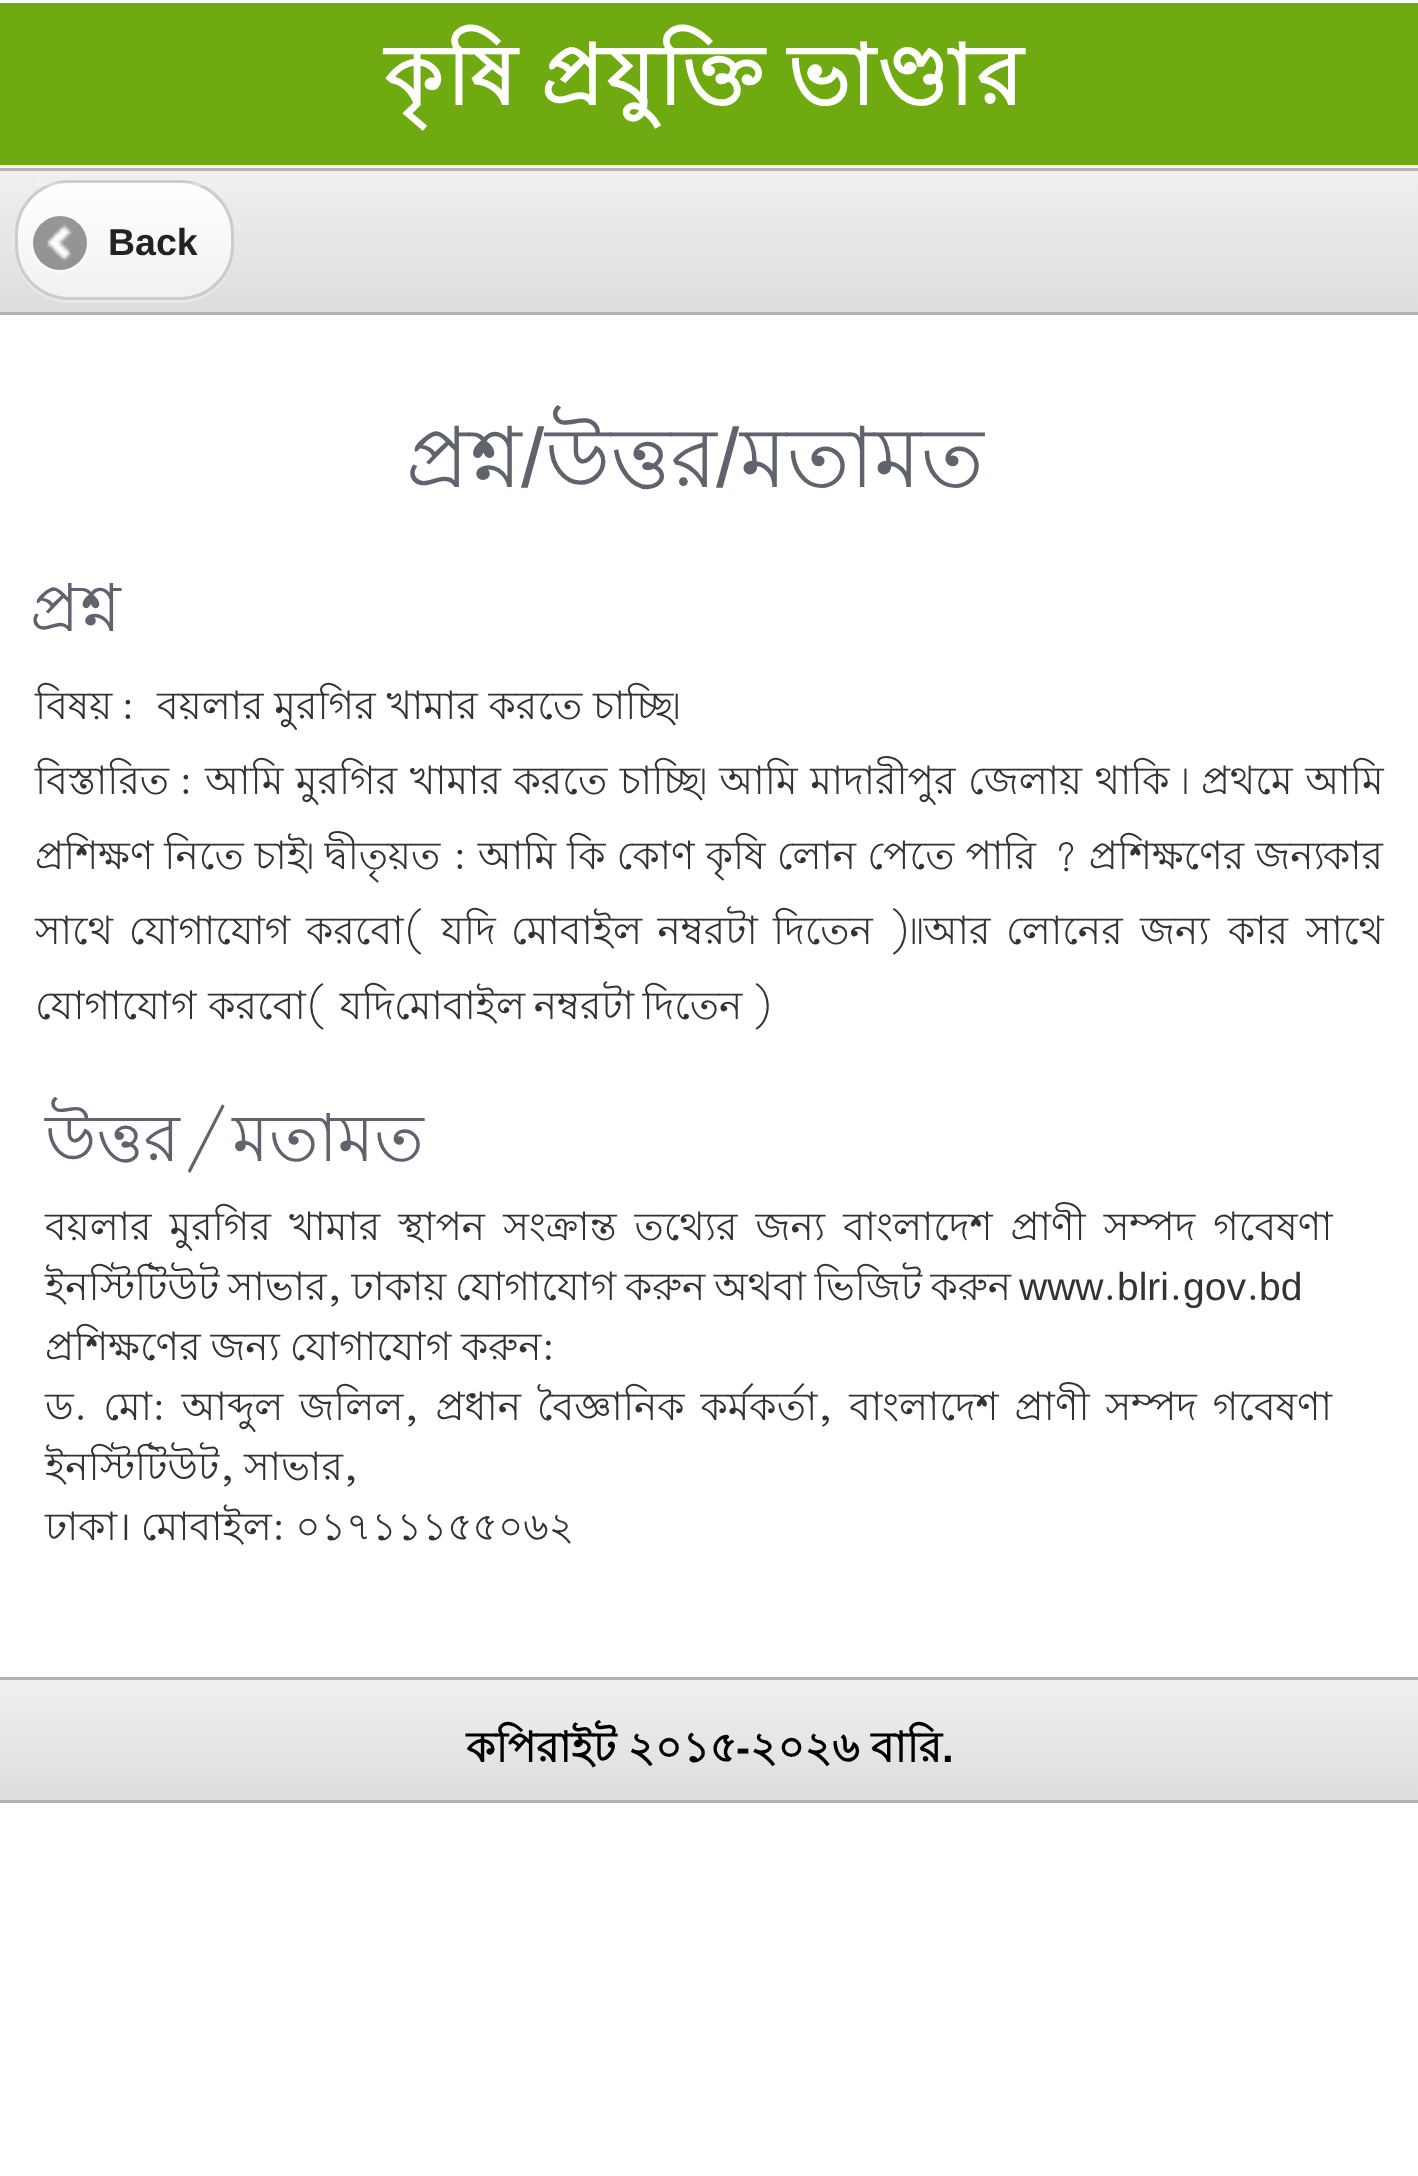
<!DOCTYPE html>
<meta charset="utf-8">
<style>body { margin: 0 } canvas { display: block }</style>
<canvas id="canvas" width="1418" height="2176"></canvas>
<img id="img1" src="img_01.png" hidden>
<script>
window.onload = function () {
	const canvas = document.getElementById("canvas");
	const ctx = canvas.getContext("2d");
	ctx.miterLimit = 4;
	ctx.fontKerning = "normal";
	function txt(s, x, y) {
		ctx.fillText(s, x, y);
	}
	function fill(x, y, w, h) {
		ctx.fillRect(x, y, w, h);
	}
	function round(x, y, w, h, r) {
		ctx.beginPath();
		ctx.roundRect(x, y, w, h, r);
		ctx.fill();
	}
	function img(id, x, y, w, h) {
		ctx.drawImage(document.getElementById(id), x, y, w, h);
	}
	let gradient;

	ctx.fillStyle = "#F9F9F9";
	fill(0, 0, 1418, 2176);
	ctx.fillStyle = "#FFFFFF";
	fill(0, 315, 1418, 1861);
	ctx.fillStyle = "#F6F6F7";
	fill(0, 165, 1418, 3);
	ctx.fillStyle = "#6FAA10";
	fill(0, 3, 1418, 162);
	gradient = ctx.createLinearGradient(710, 171, 710, 312);
	gradient.addColorStop(0, "#F0F0F0");
	gradient.addColorStop(1, "#DDDDDD");
	ctx.fillStyle = gradient;
	fill(0, 171, 1418, 141);
	ctx.fillStyle = "#B3B3B3";
	fill(0, 168, 1418, 3);
	fill(0, 312, 1418, 3);
	ctx.fillStyle = "rgba(255, 255, 255, 0.3)";
	ctx.beginPath();
	ctx.moveTo(15, 246);
	ctx.lineTo(15, 249);
	ctx.bezierCurveTo(15, 279, 39, 303, 69, 303);
	ctx.lineTo(180, 303);
	ctx.bezierCurveTo(210, 303, 234, 279, 234, 249);
	ctx.lineTo(234, 246);
	ctx.bezierCurveTo(234, 276, 210, 300, 180, 300);
	ctx.lineTo(69, 300);
	ctx.bezierCurveTo(39, 300, 15, 276, 15, 246);
	ctx.closePath();
	ctx.fill();
	gradient = ctx.createLinearGradient(125, 183, 125, 297);
	gradient.addColorStop(0, "#FFFFFF");
	gradient.addColorStop(1, "#F1F1F1");
	ctx.fillStyle = gradient;
	round(18, 183, 213, 114, 51);
	ctx.beginPath();
	ctx.roundRect(16.5, 181.5, 216, 117, 52.5);
	ctx.strokeStyle = "#CCCCCC";
	ctx.lineWidth = 3;
	ctx.stroke();
	ctx.fillStyle = "rgba(255, 255, 255, 0.3)";
	fill(36, 183, 177, 3);
	ctx.fillStyle = "rgba(255, 255, 255, 0.4)";
	ctx.beginPath();
	ctx.moveTo(87, 245);
	ctx.bezierCurveTo(85, 278, 35, 278, 33, 245);
	ctx.bezierCurveTo(32, 272, 67, 284, 82, 261);
	ctx.bezierCurveTo(86, 256, 87, 250, 87, 245);
	ctx.closePath();
	ctx.fill();
	ctx.fillStyle = "rgba(0, 0, 0, 0.4)";
	ctx.beginPath();
	ctx.arc(60, 243, 27, 0, Math.PI * 2);
	ctx.fill();
	img("img1", 47, 224, 26, 38);
	gradient = ctx.createLinearGradient(710, 1680, 710, 1800);
	gradient.addColorStop(0, "#F0F0F0");
	gradient.addColorStop(1, "#DDDDDD");
	ctx.fillStyle = gradient;
	fill(0, 1680, 1418, 120);
	ctx.fillStyle = "#B3B3B3";
	fill(0, 1677, 1418, 3);
	fill(0, 1800, 1418, 3);
	ctx.letterSpacing = "3px";
	ctx.wordSpacing = "-5px";
	ctx.font = "bold 84px Lohit Bengali";
	ctx.fillStyle = "#FFFFFF";
	txt("কৃষি প্রযুক্তি ভাণ্ডার", 384, 105);
	ctx.letterSpacing = "0px";
	ctx.wordSpacing = "0px";
	ctx.font = "bold 37.5px Liberation Sans";
	ctx.fillStyle = "#222222";
	txt("Back", 108, 255);
	ctx.font = "84px Lohit Bengali";
	ctx.fillStyle = "#5E636D";
	txt("প্রশ্ন", 406, 487);
	ctx.font = "84px Liberation Sans";
	txt("/", 521, 487);
	ctx.font = "84px Lohit Bengali";
	txt("উত্তর", 545, 487);
	ctx.font = "84px Liberation Sans";
	txt("/", 716, 487);
	ctx.font = "84px Lohit Bengali";
	txt("মতামত", 740, 487);
	ctx.font = "66px Lohit Bengali";
	txt("প্রশ্ন", 30, 631);
	ctx.font = "39px Lohit Bengali";
	ctx.fillStyle = "#333333";
	txt("বিষয়", 35, 719);
	txt(":", 121, 719);
	txt("বয়লার মুরগির খামার করতে চাচ্ছি৷", 157, 719);
	txt("বিস্তারিত", 35, 794);
	txt(":", 179, 794);
	ctx.wordSpacing = "1.75px";
	txt("আমি মুরগির খামার করতে চাচ্ছি৷ আমি মাদারীপুর জেলায় থাকি ৷", 205, 794);
	txt("প্রথমে আমি", 1201, 794);
	ctx.wordSpacing = "0px";
	txt("প্রশিক্ষণ নিতে চাই৷ দ্বীতৃয়ত", 35, 869);
	ctx.wordSpacing = "0.25px";
	txt(": আমি কি কোণ কৃষি লোন পেতে পারি ? প্রশিক্ষণের জন্য", 453, 869);
	ctx.wordSpacing = "0px";
	txt("কার", 1323, 869);
	ctx.wordSpacing = "5px";
	txt("সাথে যোগাযোগ করবো( যদি", 35, 944);
	ctx.wordSpacing = "4.5px";
	txt("মোবাইল নম্বরটা দিতেন )৷৷আর", 511, 944);
	ctx.wordSpacing = "0px";
	txt("লোনের", 1006, 944);
	txt("জন্য", 1140, 944);
	ctx.wordSpacing = "7px";
	txt("কার সাথে", 1228, 944);
	ctx.wordSpacing = "1px";
	txt("যোগাযোগ করবো( যদি", 35, 1019);
	ctx.wordSpacing = "-2.25px";
	txt("মোবাইল নম্বরটা দিতেন )", 394, 1019);
	ctx.wordSpacing = "0px";
	ctx.font = "66px Lohit Bengali";
	ctx.fillStyle = "#5E636D";
	txt("উত্তর/মতামত", 45, 1161);
	ctx.wordSpacing = "7.25px";
	ctx.font = "39px Lohit Bengali";
	ctx.fillStyle = "#333333";
	txt("বয়লার মুরগির খামার স্থাপন সংক্রান্ত তথ্যের জন্য বাংলাদেশ প্রাণী সম্পদ গবেষণা", 45, 1240);
	ctx.wordSpacing = "-2.25px";
	txt("ইনস্টিটিউট সাভার, ঢাকায় যোগাযোগ করুন অথবা ভিজিট করুন", 45, 1300);
	ctx.wordSpacing = "0px";
	ctx.font = "39px Liberation Sans";
	txt("www", 1019, 1300);
	ctx.font = "39px Lohit Bengali";
	txt(".", 1103, 1300);
	ctx.font = "39px Liberation Sans";
	txt("blri", 1117, 1300);
	ctx.font = "39px Lohit Bengali";
	txt(".", 1169, 1300);
	ctx.font = "39px Liberation Sans";
	txt("gov", 1183, 1300);
	ctx.font = "39px Lohit Bengali";
	txt(".", 1246, 1300);
	ctx.font = "39px Liberation Sans";
	txt("bd", 1259, 1300);
	ctx.wordSpacing = "-1px";
	ctx.font = "39px Lohit Bengali";
	txt("প্রশিক্ষণের জন্য যোগাযোগ করুন:", 45, 1360);
	ctx.wordSpacing = "5px";
	txt("ড. মো: আব্দুল জলিল, প্রধান বৈজ্ঞানিক কর্মকর্তা, বাংলাদেশ প্রাণী সম্পদ গবেষণা", 45, 1420);
	ctx.wordSpacing = "-2.25px";
	txt("ইনস্টিটিউট, সাভার,", 45, 1480);
	ctx.wordSpacing = "-1px";
	txt("ঢাকা। মোবাইল: ০১৭১১১৫৫০৬২", 45, 1540);
	ctx.wordSpacing = "0px";
	ctx.font = "bold 42px Lohit Bengali";
	ctx.fillStyle = "#000000";
	txt("কপিরাইট ২০১৫", 466, 1762);
	ctx.font = "bold 42px Liberation Sans";
	txt("-", 736, 1762);
	ctx.font = "bold 42px Lohit Bengali";
	txt("২০২৬ বারি", 750, 1762);
	ctx.font = "bold 42px Liberation Sans";
	txt(".", 942, 1762);
};
</script>
